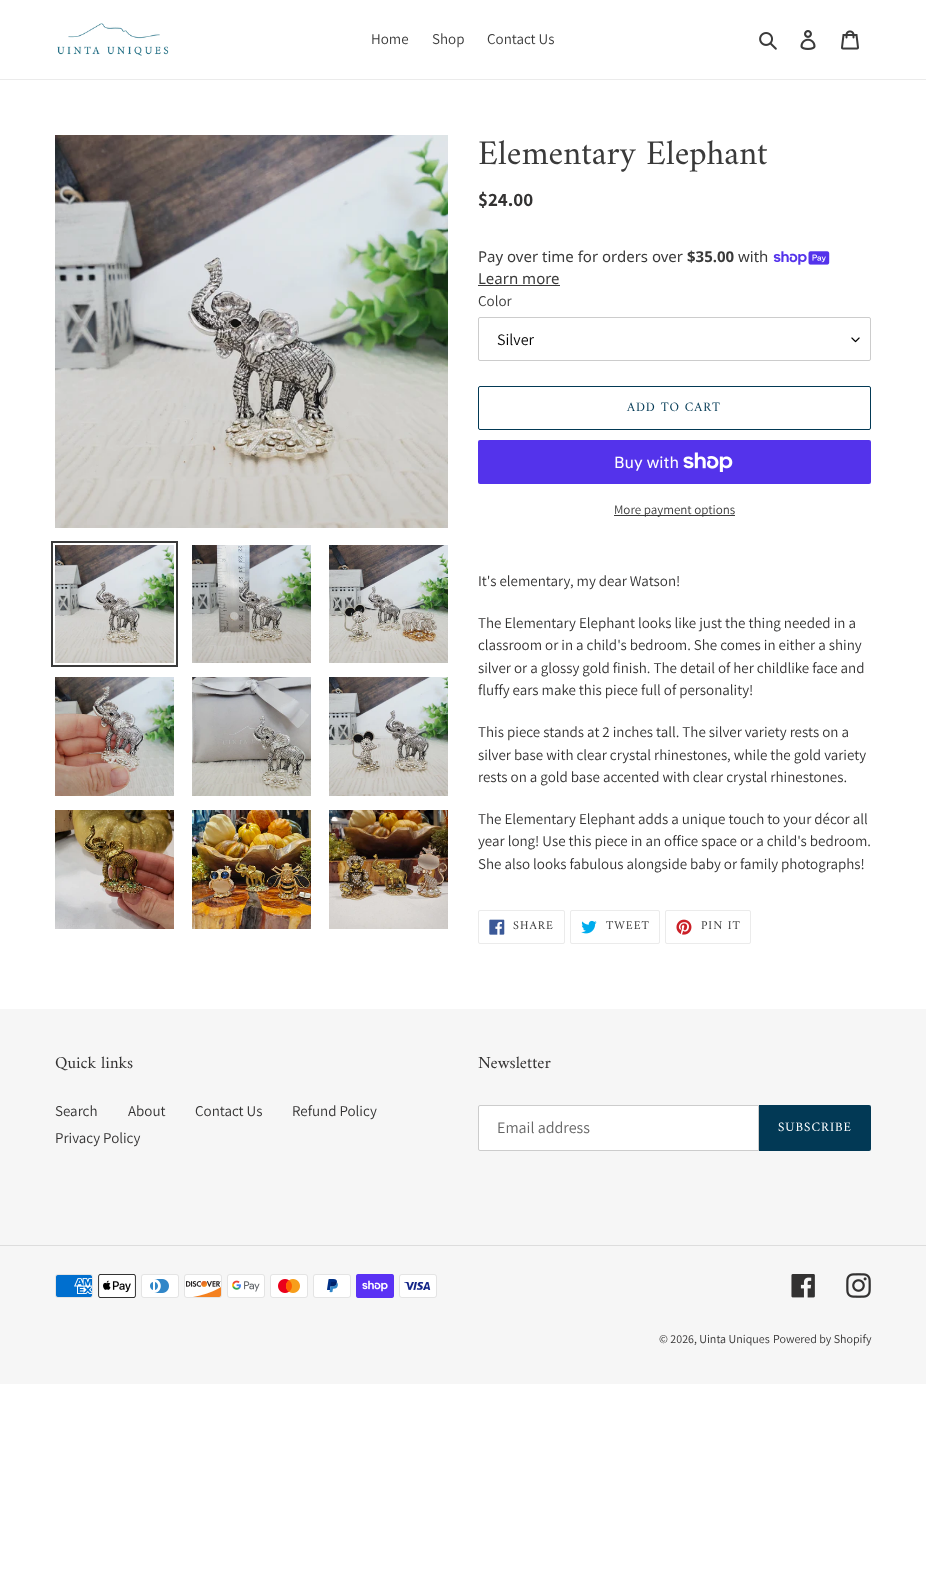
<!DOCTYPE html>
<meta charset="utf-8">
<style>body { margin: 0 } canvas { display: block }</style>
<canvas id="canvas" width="926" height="1586"></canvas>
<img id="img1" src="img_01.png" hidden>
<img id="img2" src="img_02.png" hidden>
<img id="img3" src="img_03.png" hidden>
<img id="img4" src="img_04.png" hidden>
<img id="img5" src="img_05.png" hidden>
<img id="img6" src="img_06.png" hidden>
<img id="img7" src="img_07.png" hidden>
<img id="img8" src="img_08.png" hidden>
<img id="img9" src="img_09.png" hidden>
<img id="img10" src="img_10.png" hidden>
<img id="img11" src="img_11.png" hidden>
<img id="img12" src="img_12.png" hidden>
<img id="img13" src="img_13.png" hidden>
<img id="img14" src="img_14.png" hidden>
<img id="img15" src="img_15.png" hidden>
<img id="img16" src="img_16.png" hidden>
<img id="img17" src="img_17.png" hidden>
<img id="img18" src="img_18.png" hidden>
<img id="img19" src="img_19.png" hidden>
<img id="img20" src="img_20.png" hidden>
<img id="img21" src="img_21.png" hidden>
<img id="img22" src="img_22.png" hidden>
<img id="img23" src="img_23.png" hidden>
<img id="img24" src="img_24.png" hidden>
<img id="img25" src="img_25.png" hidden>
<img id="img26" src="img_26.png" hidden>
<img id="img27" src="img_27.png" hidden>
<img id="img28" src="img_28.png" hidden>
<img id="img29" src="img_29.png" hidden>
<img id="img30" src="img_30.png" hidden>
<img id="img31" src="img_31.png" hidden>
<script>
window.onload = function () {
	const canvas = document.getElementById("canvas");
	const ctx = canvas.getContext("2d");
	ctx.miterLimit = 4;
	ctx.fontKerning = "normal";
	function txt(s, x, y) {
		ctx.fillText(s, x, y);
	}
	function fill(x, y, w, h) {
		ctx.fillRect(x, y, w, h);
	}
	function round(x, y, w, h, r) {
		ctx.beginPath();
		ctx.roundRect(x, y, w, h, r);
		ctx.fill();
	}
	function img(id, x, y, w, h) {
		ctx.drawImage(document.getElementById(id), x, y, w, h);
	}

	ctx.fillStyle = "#FFFFFF";
	fill(0, 0, 926, 1586);
	ctx.fillStyle = "#EBEBEB";
	fill(0, 79, 926, 1);
	img("img1", 57, 23, 112, 33);
	img("img2", 759, 32, 18, 18);
	img("img3", 800, 30, 16, 20);
	img("img4", 841, 30, 18, 20);
	img("img5", 55, 135, 393, 393);
	ctx.strokeStyle = "#3A3A3A";
	ctx.lineWidth = 2;
	ctx.strokeRect(52, 542, 125, 124);
	img("img6", 55, 545, 119, 118);
	img("img7", 192, 545, 119, 118);
	img("img8", 329, 545, 119, 118);
	img("img9", 55, 677, 119, 119);
	img("img10", 192, 677, 119, 119);
	img("img11", 329, 677, 119, 119);
	img("img12", 55, 810, 119, 119);
	img("img13", 192, 810, 119, 119);
	img("img14", 329, 810, 119, 119);
	img("img15", 773, 251, 57, 14);
	ctx.fillStyle = "#3A3A3A";
	fill(478, 285, 82, 1);
	img("img16", 851, 337, 9, 6);
	ctx.beginPath();
	ctx.roundRect(478.5, 317.5, 392, 43, 1.5);
	ctx.strokeStyle = "#CCCCCC";
	ctx.lineWidth = 1;
	ctx.stroke();
	ctx.beginPath();
	ctx.roundRect(478.5, 386.5, 392, 43, 1.5);
	ctx.strokeStyle = "#023955";
	ctx.stroke();
	ctx.fillStyle = "#5433EB";
	round(478, 440, 393, 44, 2);
	img("img17", 683, 452, 50, 20);
	ctx.fillStyle = "#3A3A3A";
	fill(614, 515, 121, 1);
	ctx.beginPath();
	ctx.roundRect(478.5, 910.5, 86, 33, 1.5);
	ctx.strokeStyle = "#EBEBEB";
	ctx.stroke();
	img("img18", 489, 919, 16, 16);
	ctx.beginPath();
	ctx.roundRect(570.5, 910.5, 89, 33, 1.5);
	ctx.stroke();
	img("img19", 581, 920, 16, 14);
	ctx.beginPath();
	ctx.roundRect(665.5, 910.5, 85, 33, 1.5);
	ctx.stroke();
	img("img20", 676, 919, 16, 16);
	ctx.fillStyle = "#F6F6F6";
	fill(0, 1009, 926, 375);
	ctx.fillStyle = "#FFFFFF";
	ctx.beginPath();
	ctx.roundRect(478.5, 1105.5, 280, 45, [1.5, 0, 0, 1.5]);
	ctx.fill();
	ctx.strokeStyle = "#CCCCCC";
	ctx.stroke();
	ctx.fillStyle = "#023955";
	ctx.beginPath();
	ctx.roundRect(759, 1105, 112, 46, [0, 2, 2, 0]);
	ctx.fill();
	ctx.fillStyle = "#DDDDDD";
	fill(0, 1245, 926, 1);
	img("img21", 55, 1274, 38, 24);
	img("img22", 98, 1274, 38, 24);
	img("img23", 141, 1274, 38, 24);
	img("img24", 184, 1274, 38, 24);
	img("img25", 227, 1274, 38, 24);
	img("img26", 270, 1274, 38, 24);
	img("img27", 313, 1274, 38, 24);
	img("img28", 356, 1274, 38, 24);
	img("img29", 399, 1274, 38, 24);
	img("img30", 791, 1274, 24, 24);
	img("img31", 846, 1273, 25, 25);
	ctx.font = "15px Assistant";
	ctx.fillStyle = "#3A3A3A";
	txt("Home", 371, 44);
	txt("Shop", 432, 44);
	txt("Contact Us", 487, 44);
	ctx.font = "35px Amiri";
	txt("Elementary Elephant", 478, 164);
	ctx.font = "bold 19px Assistant";
	ctx.fillStyle = "#333232";
	txt("$24.00", 478, 206);
	ctx.font = "15px Noto Sans";
	ctx.fillStyle = "#3A3A3A";
	txt("Pay over time for orders over", 478, 262);
	ctx.font = "bold 15px Noto Sans";
	txt("$35.00", 687, 262);
	ctx.font = "15px Noto Sans";
	txt("with", 738, 262);
	txt("Learn more", 478, 284);
	ctx.font = "15px Assistant";
	txt("Color", 478, 306);
	ctx.font = "16px Assistant";
	ctx.fillStyle = "#000000";
	txt("Silver", 497, 345);
	ctx.letterSpacing = "1px";
	ctx.font = "13px Amiri";
	ctx.fillStyle = "#023955";
	txt("ADD TO CART", 627, 411);
	ctx.letterSpacing = "0px";
	ctx.font = "16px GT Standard";
	ctx.fillStyle = "#FFFFFF";
	txt("Buy with", 614, 468);
	ctx.font = "13px Assistant";
	ctx.fillStyle = "#3A3A3A";
	txt("More payment options", 614, 514);
	ctx.font = "15px Assistant";
	ctx.fillStyle = "#333232";
	txt("It's elementary, my dear Watson!", 478, 586);
	txt("The Elementary Elephant looks like just the thing needed in a", 478, 628);
	txt("classroom or in a child's bedroom. She comes in either a shiny", 478, 650);
	txt("silver or a glossy gold finish. The detail of her childlike face and", 478, 673);
	txt("fluffy ears make this piece full of personality!", 478, 695);
	txt("This piece stands at 2 inches tall. The silver variety rests on a", 478, 737);
	txt("silver base with clear crystal rhinestones, while the gold variety", 478, 760);
	txt("rests on a gold base accented with clear crystal rhinestones.", 478, 782);
	txt("The Elementary Elephant adds a unique touch to your décor all", 478, 824);
	txt("year long! Use this piece in an office space or a child's bedroom.", 478, 846);
	txt("She also looks fabulous alongside baby or family photographs!", 478, 869);
	ctx.letterSpacing = "1px";
	ctx.font = "12px Amiri";
	ctx.fillStyle = "#3A3A3A";
	txt("SHARE", 513, 929);
	txt("TWEET", 606, 929);
	txt("PIN IT", 701, 929);
	ctx.letterSpacing = "0px";
	ctx.font = "17px Amiri";
	ctx.fillStyle = "#333232";
	txt("Quick links", 55, 1068);
	ctx.font = "15px Assistant";
	txt("Search", 55, 1116);
	txt("About", 128, 1116);
	txt("Contact Us", 195, 1116);
	txt("Refund Policy", 292, 1116);
	txt("Privacy Policy", 55, 1143);
	ctx.font = "17px Amiri";
	txt("Newsletter", 478, 1068);
	ctx.font = "16px Assistant";
	ctx.fillStyle = "#666666";
	txt("Email address", 497, 1133);
	ctx.letterSpacing = "1px";
	ctx.font = "13px Amiri";
	ctx.fillStyle = "#FFFFFF";
	txt("SUBSCRIBE", 778, 1131);
	ctx.letterSpacing = "0px";
	ctx.font = "12px Assistant";
	ctx.fillStyle = "#333232";
	txt("© 2026, Uinta Uniques", 659, 1343);
	txt("Powered by Shopify", 773, 1343);
};
</script>
